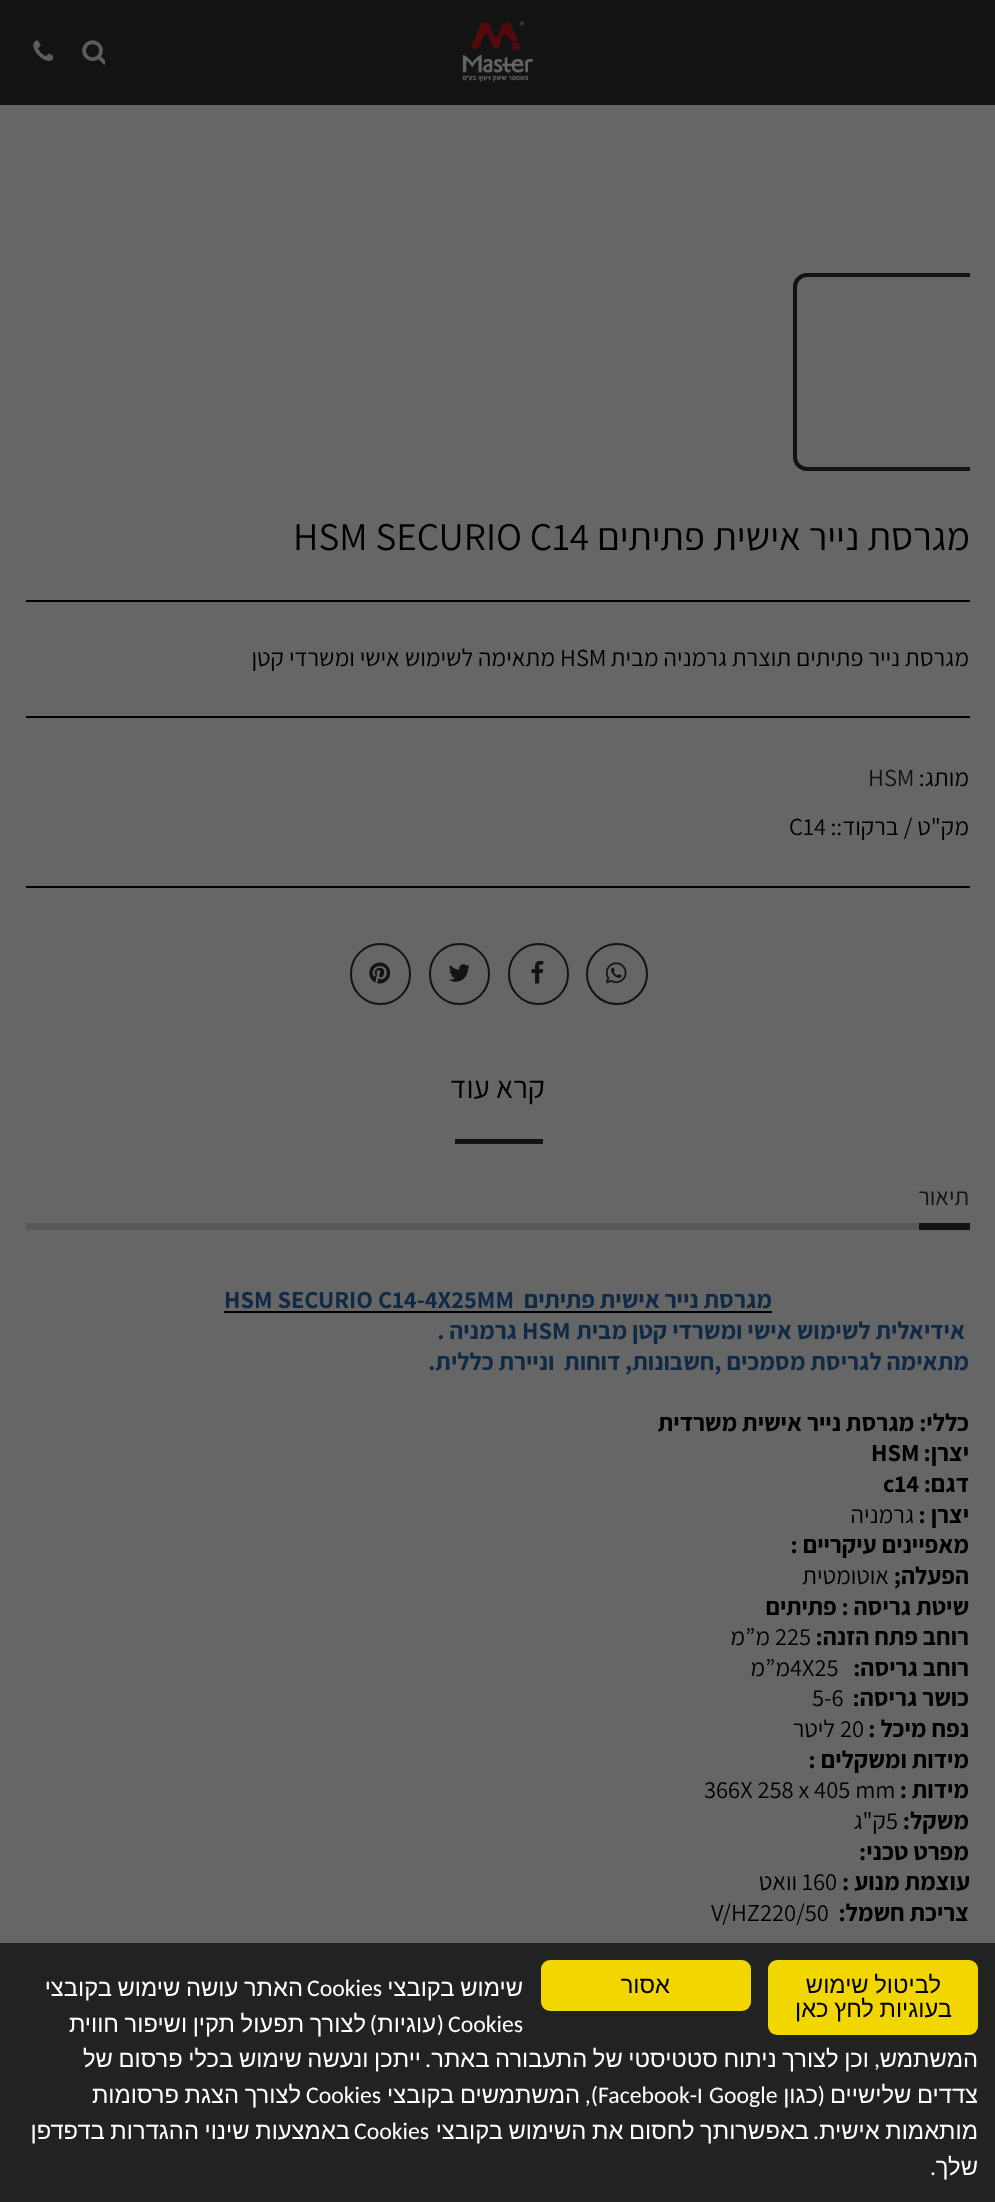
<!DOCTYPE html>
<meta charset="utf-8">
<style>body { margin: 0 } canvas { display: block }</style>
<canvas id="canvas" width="995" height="2202"></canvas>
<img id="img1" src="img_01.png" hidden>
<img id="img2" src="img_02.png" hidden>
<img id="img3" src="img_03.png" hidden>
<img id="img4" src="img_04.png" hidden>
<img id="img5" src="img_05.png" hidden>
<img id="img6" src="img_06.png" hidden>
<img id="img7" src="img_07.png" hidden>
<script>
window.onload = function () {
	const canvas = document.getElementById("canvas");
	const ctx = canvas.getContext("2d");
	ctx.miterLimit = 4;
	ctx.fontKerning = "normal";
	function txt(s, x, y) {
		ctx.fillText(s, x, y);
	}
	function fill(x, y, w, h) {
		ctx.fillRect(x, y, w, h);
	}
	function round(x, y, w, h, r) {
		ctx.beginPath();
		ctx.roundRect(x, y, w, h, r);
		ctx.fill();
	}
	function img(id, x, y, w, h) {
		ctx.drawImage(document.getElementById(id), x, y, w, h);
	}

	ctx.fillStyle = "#666666";
	fill(0, 0, 995, 2202);
	ctx.fillStyle = "#131313";
	fill(0, 0, 995, 105);
	img("img1", 462, 21, 72, 61);
	img("img2", 82, 40, 23, 25);
	img("img3", 33, 40, 20, 21);
	ctx.save();
	ctx.beginPath();
	ctx.rect(95, 273, 875, 207);
	ctx.clip();
	ctx.beginPath();
	ctx.roundRect(795, 275, 187, 194, 12);
	ctx.strokeStyle = "#131313";
	ctx.lineWidth = 4;
	ctx.stroke();
	ctx.restore();
	ctx.fillStyle = "#000000";
	fill(26, 600, 944, 2);
	fill(26, 716, 944, 2);
	fill(26, 886, 944, 2);
	ctx.beginPath();
	ctx.arc(617, 974, 30, 0, Math.PI * 2);
	ctx.strokeStyle = "#131313";
	ctx.lineWidth = 2;
	ctx.stroke();
	img("img4", 606, 962, 21, 22);
	ctx.beginPath();
	ctx.roundRect(509, 944, 59, 60, 29.5);
	ctx.stroke();
	img("img5", 531, 961, 13, 23);
	ctx.beginPath();
	ctx.roundRect(430, 944, 59, 60, 29.5);
	ctx.stroke();
	img("img6", 448, 964, 21, 18);
	ctx.beginPath();
	ctx.roundRect(351, 944, 59, 60, 29.5);
	ctx.stroke();
	img("img7", 369, 962, 21, 22);
	ctx.fillStyle = "#131313";
	fill(455, 1139, 88, 5);
	ctx.fillStyle = "#585858";
	fill(26, 1223, 893, 7);
	ctx.fillStyle = "#131313";
	fill(919, 1223, 51, 7);
	ctx.fillStyle = "#000000";
	fill(224, 1311, 548, 2);
	ctx.fillStyle = "#222222";
	fill(0, 1943, 995, 259);
	ctx.fillStyle = "#F1D600";
	round(768, 1960, 210, 75, 9);
	round(541, 1960, 210, 51, 9);
	ctx.direction = "rtl";
	ctx.font = "39.25px Assistant";
	ctx.fillStyle = "#000000";
	txt("מגרסת נייר אישית פתיתים", 970, 550);
	ctx.direction = "ltr";
	txt("HSM SECURIO C14", 293, 550);
	ctx.direction = "rtl";
	ctx.font = "24.5px Assistant";
	txt("מגרסת נייר פתיתים תוצרת גרמניה מבית", 969, 666);
	ctx.direction = "ltr";
	txt("HSM", 560, 666);
	ctx.direction = "rtl";
	txt("מתאימה לשימוש אישי ומשרדי קטן", 555, 666);
	txt("מותג:", 969, 786);
	ctx.direction = "ltr";
	ctx.fillStyle = "#131313";
	txt("HSM", 868, 786);
	ctx.direction = "rtl";
	ctx.fillStyle = "#000000";
	txt("מק\"ט / ברקוד::", 969, 835);
	ctx.direction = "ltr";
	txt("C14", 789, 835);
	ctx.direction = "rtl";
	ctx.font = "31px Assistant";
	txt("קרא עוד", 545, 1098);
	ctx.font = "24.5px Assistant";
	ctx.fillStyle = "#131313";
	txt("תיאור", 969, 1205);
	ctx.font = "bold 24.5px Assistant";
	ctx.fillStyle = "#102A46";
	txt("מגרסת נייר אישית פתיתים", 772, 1308);
	ctx.direction = "ltr";
	txt("HSM SECURIO C14-4X25MM", 224, 1308);
	ctx.direction = "rtl";
	txt("אידיאלית לשימוש אישי ומשרדי קטן מבית", 965, 1339);
	ctx.direction = "ltr";
	txt("HSM", 522, 1339);
	ctx.direction = "rtl";
	txt("גרמניה .", 517, 1339);
	txt("מתאימה לגריסת מסמכים ,חשבונות, דוחות  וניירת כללית.", 969, 1370);
	ctx.fillStyle = "#000000";
	txt("כללי: מגרסת נייר אישית משרדית", 969, 1431);
	txt("יצרן:", 969, 1461);
	ctx.direction = "ltr";
	txt("HSM", 871, 1461);
	ctx.direction = "rtl";
	txt("דגם:", 969, 1492);
	ctx.direction = "ltr";
	txt("c14", 883, 1492);
	ctx.direction = "rtl";
	txt("יצרן :", 969, 1523);
	ctx.font = "24.5px Assistant";
	txt("גרמניה", 914, 1523);
	ctx.font = "bold 24.5px Assistant";
	txt("מאפיינים עיקריים :", 969, 1553);
	txt("הפעלה;", 969, 1584);
	ctx.font = "24.5px Assistant";
	txt("אוטומטית", 889, 1584);
	ctx.font = "bold 24.5px Assistant";
	txt("שיטת גריסה : פתיתים", 969, 1615);
	txt("רוחב פתח הזנה:", 969, 1645);
	ctx.direction = "ltr";
	ctx.font = "24.5px Assistant";
	txt("225", 775, 1645);
	ctx.direction = "rtl";
	txt("מ”מ", 770, 1645);
	ctx.font = "bold 24.5px Assistant";
	txt("רוחב גריסה:", 969, 1676);
	ctx.direction = "ltr";
	ctx.font = "24.5px Assistant";
	txt("4X25", 790, 1676);
	ctx.direction = "rtl";
	txt("מ”מ", 790, 1676);
	ctx.font = "bold 24.5px Assistant";
	txt("כושר גריסה:", 969, 1706);
	ctx.direction = "ltr";
	ctx.font = "24.5px Assistant";
	txt("5-6", 812, 1706);
	ctx.direction = "rtl";
	ctx.font = "bold 24.5px Assistant";
	txt("נפח מיכל :", 969, 1737);
	ctx.direction = "ltr";
	ctx.font = "24.5px Assistant";
	txt("20", 840, 1737);
	ctx.direction = "rtl";
	txt("ליטר", 835, 1737);
	ctx.font = "bold 24.5px Assistant";
	txt("מידות ומשקלים :", 969, 1768);
	txt("מידות :", 969, 1798);
	ctx.direction = "ltr";
	ctx.font = "24.5px Assistant";
	txt("366X 258 x 405 mm", 704, 1798);
	ctx.direction = "rtl";
	ctx.font = "bold 24.5px Assistant";
	txt("משקל:", 969, 1829);
	ctx.direction = "ltr";
	ctx.font = "24.5px Assistant";
	txt("5", 886, 1829);
	ctx.direction = "rtl";
	txt("ק\"ג", 886, 1829);
	ctx.font = "bold 24.5px Assistant";
	txt("מפרט טכני:", 969, 1860);
	txt("עוצמת מנוע :", 970, 1890);
	ctx.direction = "ltr";
	ctx.font = "24.5px Assistant";
	txt("160", 802, 1890);
	ctx.direction = "rtl";
	txt("וואט", 797, 1890);
	ctx.font = "bold 24.5px Assistant";
	txt("צריכת חשמל:", 969, 1921);
	ctx.direction = "ltr";
	ctx.font = "24.5px Assistant";
	txt("V/HZ220/50", 711, 1921);
	ctx.wordSpacing = "-1px";
	ctx.direction = "rtl";
	ctx.font = "23.75px Liberation Sans";
	txt("לביטול שימוש", 941, 1993);
	txt("בעוגיות לחץ כאן", 952, 2017);
	ctx.wordSpacing = "0px";
	txt("אסור", 670, 1993);
	ctx.wordSpacing = "-1px";
	ctx.fillStyle = "#FFFFFF";
	txt("שימוש בקובצי", 523, 1996);
	ctx.wordSpacing = "0px";
	ctx.direction = "ltr";
	ctx.font = "23.75px Carlito";
	txt("Cookies", 307, 1996);
	ctx.wordSpacing = "-1px";
	ctx.direction = "rtl";
	ctx.font = "23.75px Liberation Sans";
	txt("האתר עושה שימוש בקובצי", 303, 1996);
	ctx.wordSpacing = "0px";
	ctx.direction = "ltr";
	ctx.font = "23.75px Carlito";
	txt("Cookies", 448, 2032);
	ctx.direction = "rtl";
	txt("(", 444, 2032);
	ctx.font = "23.75px Liberation Sans";
	txt("עוגיות", 436, 2032);
	ctx.font = "23.75px Carlito";
	txt(")", 377, 2032);
	ctx.wordSpacing = "-1px";
	ctx.font = "23.75px Liberation Sans";
	txt("לצורך תפעול תקין ושיפור חווית", 366, 2032);
	ctx.wordSpacing = "0px";
	txt("המשתמש", 978, 2067);
	ctx.font = "23.75px Carlito";
	txt(",", 880, 2067);
	ctx.wordSpacing = "-1px";
	ctx.font = "23.75px Liberation Sans";
	txt("וכן לצורך ניתוח סטטיסטי של התעבורה באתר", 869, 2067);
	ctx.wordSpacing = "0px";
	ctx.font = "23.75px Carlito";
	txt(".", 431, 2067);
	ctx.wordSpacing = "-1px";
	ctx.font = "23.75px Liberation Sans";
	txt("ייתכן ונעשה שימוש בכלי פרסום של", 421, 2067);
	txt("צדדים שלישיים", 978, 2103);
	ctx.wordSpacing = "0px";
	ctx.font = "23.75px Carlito";
	txt("(", 825, 2103);
	ctx.font = "23.75px Liberation Sans";
	txt("כגון", 818, 2103);
	ctx.direction = "ltr";
	ctx.font = "23.75px Carlito";
	txt("Google", 709, 2103);
	ctx.direction = "rtl";
	ctx.font = "23.75px Liberation Sans";
	txt("ו", 703, 2103);
	ctx.font = "23.75px Carlito";
	txt("-", 697, 2103);
	ctx.direction = "ltr";
	txt("Facebook", 598, 2103);
	ctx.direction = "rtl";
	txt("),", 598, 2103);
	ctx.wordSpacing = "-1px";
	ctx.font = "23.75px Liberation Sans";
	txt("המשתמשים בקובצי", 580, 2103);
	ctx.wordSpacing = "0px";
	ctx.direction = "ltr";
	ctx.font = "23.75px Carlito";
	txt("Cookies", 306, 2103);
	ctx.wordSpacing = "-1px";
	ctx.direction = "rtl";
	ctx.font = "23.75px Liberation Sans";
	txt("לצורך הצגת פרסומות", 301, 2103);
	txt("מותאמות אישית", 978, 2139);
	ctx.wordSpacing = "0px";
	ctx.font = "23.75px Carlito";
	txt(".", 819, 2139);
	ctx.wordSpacing = "-1px";
	ctx.font = "23.75px Liberation Sans";
	txt("באפשרותך לחסום את השימוש בקובצי", 809, 2139);
	ctx.wordSpacing = "0px";
	ctx.direction = "ltr";
	ctx.font = "23.75px Carlito";
	txt("Cookies", 354, 2139);
	ctx.wordSpacing = "-1px";
	ctx.direction = "rtl";
	ctx.font = "23.75px Liberation Sans";
	txt("באמצעות שינוי ההגדרות בדפדפן", 350, 2139);
	ctx.wordSpacing = "0px";
	txt("שלך", 978, 2175);
	ctx.font = "23.75px Carlito";
	txt(".", 936, 2175);
};
</script>
